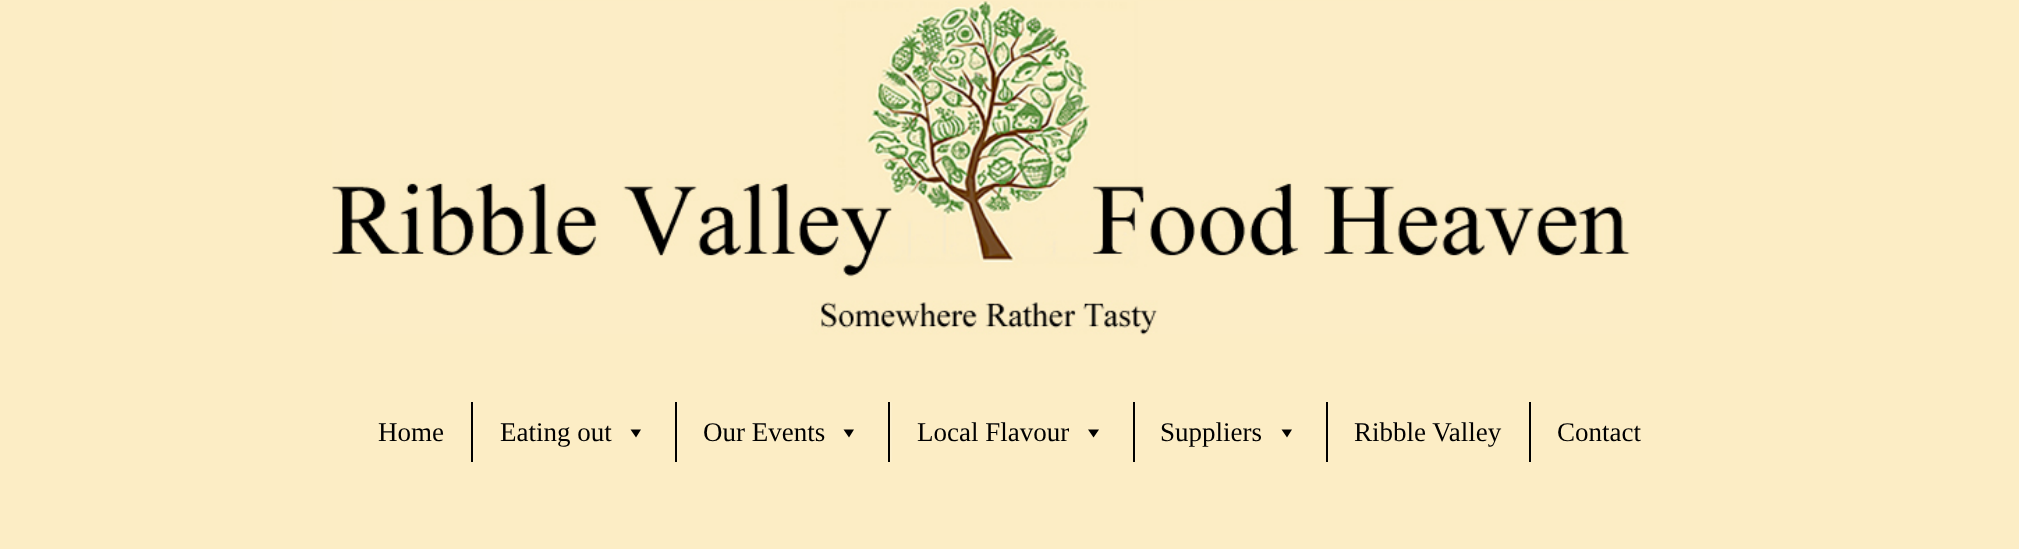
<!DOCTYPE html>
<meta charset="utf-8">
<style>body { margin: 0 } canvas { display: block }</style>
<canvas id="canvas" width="2019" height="549"></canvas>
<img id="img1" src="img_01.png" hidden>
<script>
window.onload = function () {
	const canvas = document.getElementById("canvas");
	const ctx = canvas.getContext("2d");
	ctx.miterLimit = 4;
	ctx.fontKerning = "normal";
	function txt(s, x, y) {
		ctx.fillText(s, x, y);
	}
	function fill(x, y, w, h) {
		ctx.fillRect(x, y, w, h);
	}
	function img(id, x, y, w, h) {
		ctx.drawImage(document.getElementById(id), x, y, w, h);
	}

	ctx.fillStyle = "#FCEDC5";
	fill(0, 0, 2019, 549);
	img("img1", 332, 1, 1298, 334);
	ctx.fillStyle = "#FCEFCB";
	fill(473, 402, 2, 60);
	ctx.fillStyle = "#000000";
	fill(471, 402, 2, 60);
	ctx.beginPath();
	ctx.moveTo(641, 429.5);
	ctx.lineTo(636, 437.5);
	ctx.lineTo(630.5, 429.5);
	ctx.closePath();
	ctx.fill();
	ctx.fillStyle = "#FCEFCB";
	fill(677, 402, 2, 60);
	ctx.fillStyle = "#000000";
	fill(675, 402, 2, 60);
	ctx.beginPath();
	ctx.moveTo(854, 429.5);
	ctx.lineTo(849, 437.5);
	ctx.lineTo(843.5, 429.5);
	ctx.closePath();
	ctx.fill();
	ctx.fillStyle = "#FCEFCB";
	fill(890, 402, 2, 60);
	ctx.fillStyle = "#000000";
	fill(888, 402, 2, 60);
	ctx.beginPath();
	ctx.moveTo(1099, 429.5);
	ctx.lineTo(1093.5, 437.5);
	ctx.lineTo(1088, 429.5);
	ctx.closePath();
	ctx.fill();
	ctx.fillStyle = "#FCEFCB";
	fill(1135, 402, 1, 60);
	ctx.fillStyle = "#000000";
	fill(1133, 402, 2, 60);
	ctx.beginPath();
	ctx.moveTo(1292, 429.5);
	ctx.lineTo(1287, 437.5);
	ctx.lineTo(1281.5, 429.5);
	ctx.closePath();
	ctx.fill();
	ctx.fillStyle = "#FCEFCB";
	fill(1328, 402, 2, 60);
	ctx.fillStyle = "#000000";
	fill(1326, 402, 2, 60);
	ctx.fillStyle = "#FCEFCB";
	fill(1531, 402, 1, 60);
	ctx.fillStyle = "#000000";
	fill(1529, 402, 2, 60);
	ctx.font = "27px Liberation Serif";
	txt("Home", 378, 441);
	txt("Eating out", 500, 441);
	txt("Our Events", 703, 441);
	txt("Local Flavour", 917, 441);
	txt("Suppliers", 1160, 441);
	txt("Ribble Valley", 1354, 441);
	txt("Contact", 1557, 441);
};
</script>
